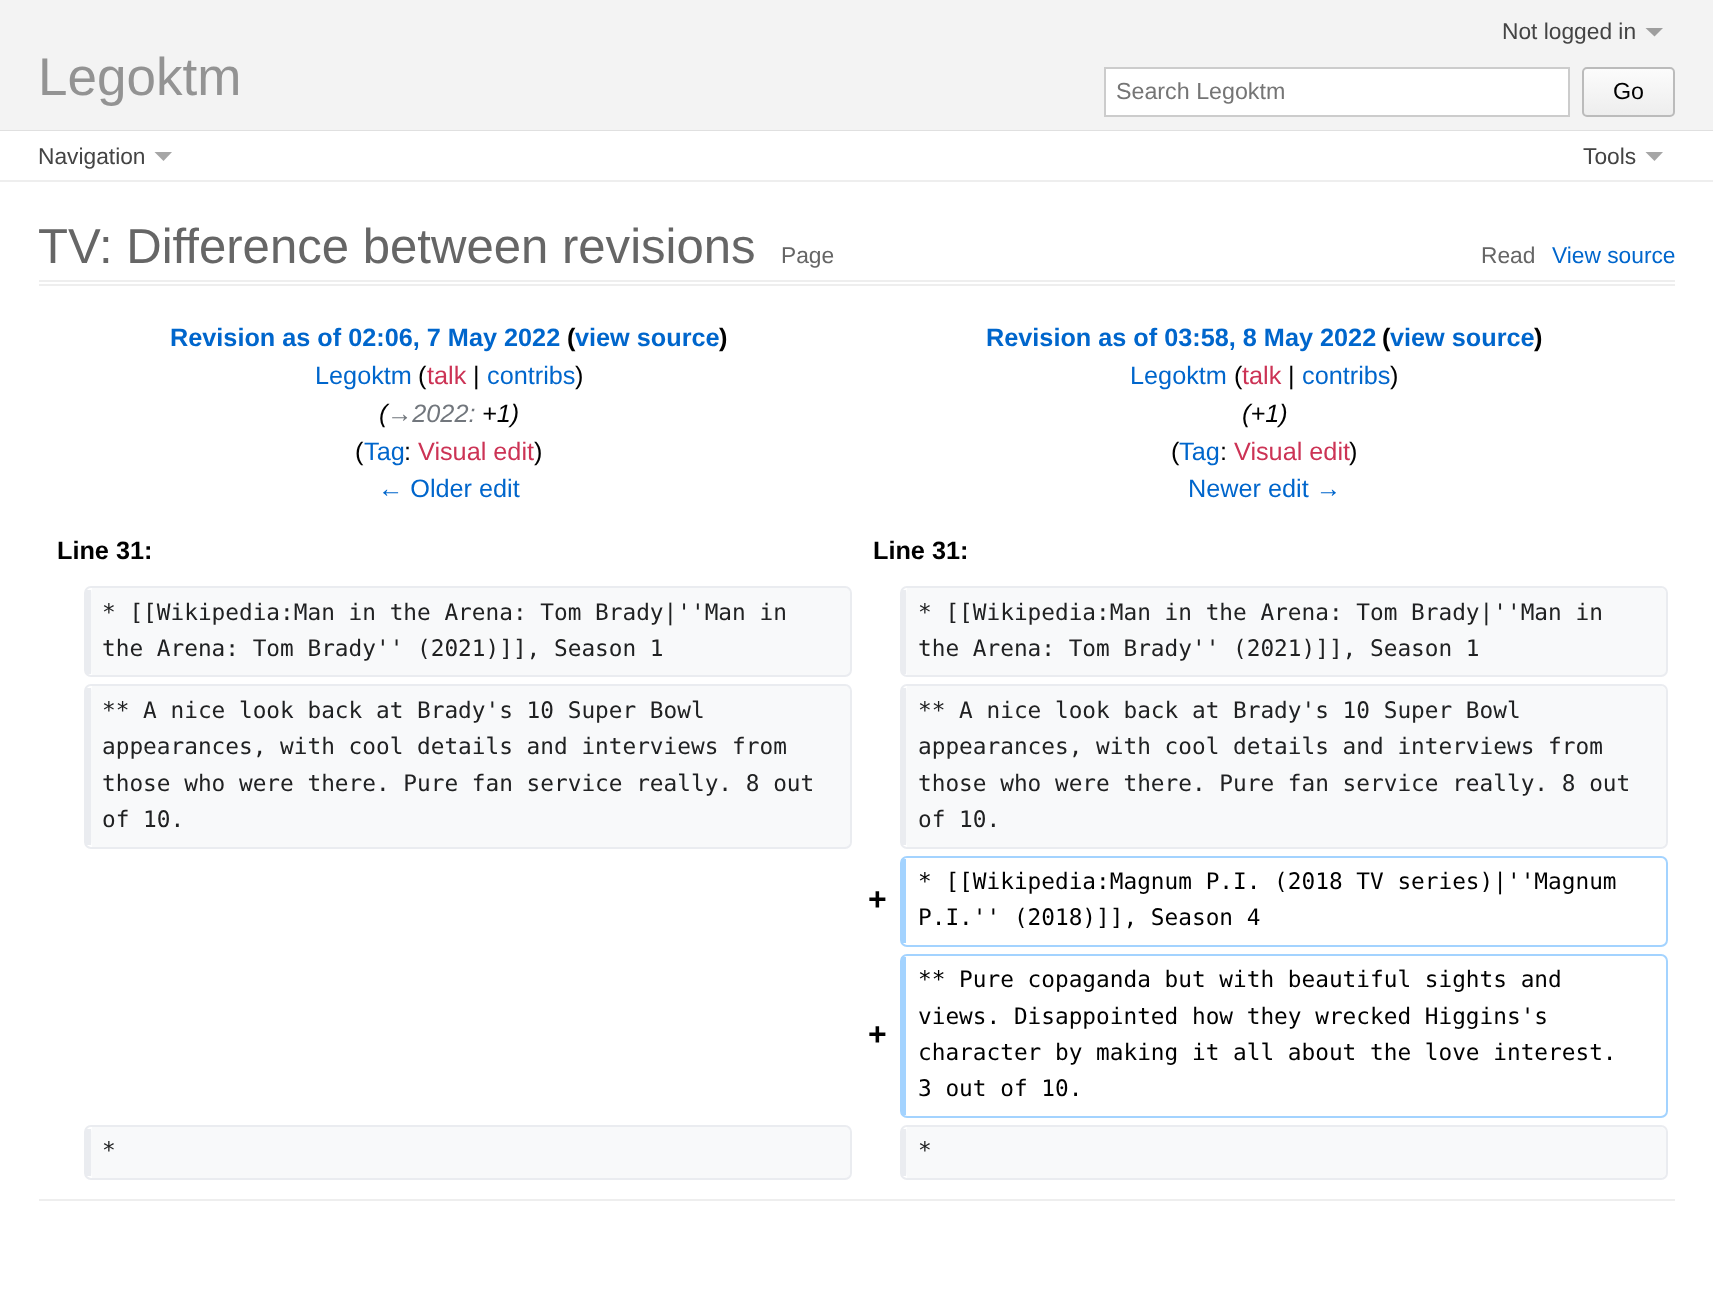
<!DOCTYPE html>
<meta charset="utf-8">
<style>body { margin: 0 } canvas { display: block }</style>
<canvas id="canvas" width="1713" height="1303"></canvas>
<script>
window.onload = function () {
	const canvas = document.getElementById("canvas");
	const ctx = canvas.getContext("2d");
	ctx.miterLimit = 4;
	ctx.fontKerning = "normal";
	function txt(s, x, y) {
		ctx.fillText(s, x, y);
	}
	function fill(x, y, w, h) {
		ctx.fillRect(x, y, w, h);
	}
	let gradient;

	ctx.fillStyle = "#F3F3F3";
	fill(0, 0, 1713, 1303);
	ctx.fillStyle = "#E0E0E0";
	fill(0, 130, 1713, 1);
	ctx.fillStyle = "#9E9E9E";
	ctx.beginPath();
	ctx.moveTo(1663, 28);
	ctx.lineTo(1654.5, 36.5);
	ctx.lineTo(1645.5, 28);
	ctx.closePath();
	ctx.fill();
	ctx.fillStyle = "#FFFFFF";
	ctx.beginPath();
	ctx.rect(1105, 68, 464, 48);
	ctx.fill();
	ctx.strokeStyle = "#CCCCCC";
	ctx.lineWidth = 2;
	ctx.stroke();
	ctx.save();
	ctx.beginPath();
	ctx.roundRect(1582, 67, 93, 50, 5);
	ctx.clip();
	gradient = ctx.createLinearGradient(1628, 68, 1628, 116);
	gradient.addColorStop(0, "#FCFCFC");
	gradient.addColorStop(1, "#EDEDED");
	ctx.fillStyle = gradient;
	fill(1582, 68, 93, 48);
	ctx.restore();
	ctx.beginPath();
	ctx.roundRect(1583, 68, 91, 48, 4);
	ctx.strokeStyle = "#BBBBBB";
	ctx.stroke();
	fill(0, 131, 1713, 49);
	ctx.fillStyle = "#EEEEEE";
	fill(0, 180, 1713, 2);
	ctx.fillStyle = "#A6A6A6";
	ctx.beginPath();
	ctx.moveTo(172, 152);
	ctx.lineTo(163.5, 161);
	ctx.lineTo(154.5, 152);
	ctx.closePath();
	ctx.fill();
	ctx.beginPath();
	ctx.moveTo(1663, 152);
	ctx.lineTo(1654.5, 161);
	ctx.lineTo(1645.5, 152);
	ctx.closePath();
	ctx.fill();
	ctx.fillStyle = "#FFFFFF";
	fill(0, 182, 1713, 1121);
	ctx.fillStyle = "#EEEEEE";
	fill(39, 280, 1636, 2);
	fill(39, 284, 1636, 2);
	ctx.fillStyle = "#F8F9FA";
	ctx.beginPath();
	ctx.moveTo(92, 588);
	ctx.lineTo(845, 588);
	ctx.bezierCurveTo(848, 588, 850, 591, 850, 594);
	ctx.lineTo(850, 670);
	ctx.bezierCurveTo(850, 673, 848, 676, 845, 676);
	ctx.lineTo(92, 676);
	ctx.lineTo(91, 670);
	ctx.lineTo(91, 594);
	ctx.closePath();
	ctx.fill();
	ctx.beginPath();
	ctx.roundRect(85, 587, 766, 89, 6);
	ctx.strokeStyle = "#EAECF0";
	ctx.stroke();
	ctx.fillStyle = "#EAECF0";
	fill(86, 590, 5, 84);
	ctx.fillStyle = "#F8F9FA";
	ctx.beginPath();
	ctx.moveTo(907, 588);
	ctx.lineTo(1660, 588);
	ctx.bezierCurveTo(1663, 588, 1666, 591, 1666, 594);
	ctx.lineTo(1666, 670);
	ctx.bezierCurveTo(1666, 673, 1663, 676, 1660, 676);
	ctx.lineTo(907, 676);
	ctx.lineTo(906, 670);
	ctx.lineTo(906, 594);
	ctx.closePath();
	ctx.fill();
	ctx.beginPath();
	ctx.roundRect(901, 587, 766, 89, 6);
	ctx.stroke();
	ctx.fillStyle = "#EAECF0";
	fill(902, 590, 4, 84);
	ctx.fillStyle = "#F8F9FA";
	ctx.beginPath();
	ctx.moveTo(92, 686);
	ctx.lineTo(845, 686);
	ctx.bezierCurveTo(848, 686, 850, 689, 850, 692);
	ctx.lineTo(850, 841);
	ctx.bezierCurveTo(850, 844, 848, 847, 845, 847);
	ctx.lineTo(92, 847);
	ctx.lineTo(91, 841);
	ctx.lineTo(91, 692);
	ctx.closePath();
	ctx.fill();
	ctx.beginPath();
	ctx.roundRect(85, 685, 766, 163, 6);
	ctx.stroke();
	ctx.fillStyle = "#EAECF0";
	fill(86, 688, 5, 157);
	ctx.fillStyle = "#F8F9FA";
	ctx.beginPath();
	ctx.moveTo(907, 686);
	ctx.lineTo(1660, 686);
	ctx.bezierCurveTo(1663, 686, 1666, 689, 1666, 692);
	ctx.lineTo(1666, 841);
	ctx.bezierCurveTo(1666, 844, 1663, 847, 1660, 847);
	ctx.lineTo(907, 847);
	ctx.lineTo(906, 841);
	ctx.lineTo(906, 692);
	ctx.closePath();
	ctx.fill();
	ctx.beginPath();
	ctx.roundRect(901, 685, 766, 163, 6);
	ctx.stroke();
	ctx.fillStyle = "#EAECF0";
	fill(902, 688, 4, 157);
	ctx.beginPath();
	ctx.roundRect(901, 857, 766, 89, 6);
	ctx.strokeStyle = "#A3D3FF";
	ctx.stroke();
	ctx.fillStyle = "#A3D3FF";
	fill(901, 859, 5, 84);
	ctx.beginPath();
	ctx.roundRect(901, 955, 766, 162, 6);
	ctx.stroke();
	fill(901, 957, 5, 158);
	ctx.fillStyle = "#F8F9FA";
	ctx.beginPath();
	ctx.moveTo(92, 1127);
	ctx.lineTo(845, 1127);
	ctx.bezierCurveTo(848, 1127, 850, 1130, 850, 1133);
	ctx.lineTo(850, 1172);
	ctx.bezierCurveTo(850, 1175, 848, 1178, 845, 1178);
	ctx.lineTo(92, 1178);
	ctx.lineTo(91, 1172);
	ctx.lineTo(91, 1133);
	ctx.closePath();
	ctx.fill();
	ctx.beginPath();
	ctx.roundRect(85, 1126, 766, 53, 6);
	ctx.strokeStyle = "#EAECF0";
	ctx.stroke();
	ctx.fillStyle = "#EAECF0";
	fill(86, 1129, 5, 47);
	ctx.fillStyle = "#F8F9FA";
	ctx.beginPath();
	ctx.moveTo(907, 1127);
	ctx.lineTo(1660, 1127);
	ctx.bezierCurveTo(1663, 1127, 1666, 1130, 1666, 1133);
	ctx.lineTo(1666, 1172);
	ctx.bezierCurveTo(1666, 1175, 1663, 1178, 1660, 1178);
	ctx.lineTo(907, 1178);
	ctx.lineTo(906, 1172);
	ctx.lineTo(906, 1133);
	ctx.closePath();
	ctx.fill();
	ctx.beginPath();
	ctx.roundRect(901, 1126, 766, 53, 6);
	ctx.stroke();
	ctx.fillStyle = "#EAECF0";
	fill(902, 1129, 4, 47);
	ctx.fillStyle = "#EEEEEE";
	fill(39, 1199, 1636, 2);
	ctx.font = "22.75px Liberation Sans";
	ctx.fillStyle = "#444444";
	txt("Not logged in", 1502, 39);
	ctx.font = "53px Liberation Sans";
	ctx.fillStyle = "#939393";
	txt("Legoktm", 38, 95);
	ctx.font = "23.25px Liberation Sans";
	ctx.fillStyle = "#757575";
	txt("Search Legoktm", 1116, 99);
	ctx.fillStyle = "#000000";
	txt("Go", 1613, 99);
	ctx.font = "22.75px Liberation Sans";
	ctx.fillStyle = "#444444";
	txt("Navigation", 38, 164);
	txt("Tools", 1583, 164);
	ctx.font = "49.1px Liberation Sans";
	ctx.fillStyle = "#666666";
	txt("TV: Difference between revisions", 38, 263);
	ctx.font = "22.75px Liberation Sans";
	txt("Page", 781, 263);
	txt("Read", 1481, 263);
	ctx.fillStyle = "#0066CC";
	txt("View source", 1552, 263);
	ctx.font = "bold 25.25px Liberation Sans";
	txt("Revision as of 02:06, 7 May 2022", 170, 346);
	ctx.fillStyle = "#000000";
	txt("(", 567, 346);
	ctx.fillStyle = "#0066CC";
	txt("view source", 575, 346);
	ctx.fillStyle = "#000000";
	txt(")", 719, 346);
	ctx.font = "25.25px Liberation Sans";
	ctx.fillStyle = "#0066CC";
	txt("Legoktm", 315, 384);
	ctx.fillStyle = "#000000";
	txt("(", 418, 384);
	ctx.fillStyle = "#CC3355";
	txt("talk", 427, 384);
	ctx.fillStyle = "#000000";
	txt("|", 473, 384);
	ctx.fillStyle = "#0066CC";
	txt("contribs", 487, 384);
	ctx.fillStyle = "#000000";
	txt(")", 575, 384);
	ctx.font = "italic 25.25px Liberation Sans";
	txt("(", 379, 422);
	ctx.fillStyle = "#72777D";
	txt("→2022:", 387, 422);
	ctx.fillStyle = "#000000";
	txt("+1)", 482, 422);
	ctx.font = "25.25px Liberation Sans";
	txt("(", 355, 460);
	ctx.fillStyle = "#0066CC";
	txt("Tag", 364, 460);
	ctx.fillStyle = "#000000";
	txt(":", 404, 460);
	ctx.fillStyle = "#CC3355";
	txt("Visual edit", 418, 460);
	ctx.fillStyle = "#000000";
	txt(")", 534, 460);
	ctx.fillStyle = "#0066CC";
	txt("← Older edit", 378, 497);
	ctx.font = "bold 25.25px Liberation Sans";
	txt("Revision as of 03:58, 8 May 2022", 986, 346);
	ctx.fillStyle = "#000000";
	txt("(", 1382, 346);
	ctx.fillStyle = "#0066CC";
	txt("view source", 1390, 346);
	ctx.fillStyle = "#000000";
	txt(")", 1534, 346);
	ctx.font = "25.25px Liberation Sans";
	ctx.fillStyle = "#0066CC";
	txt("Legoktm", 1130, 384);
	ctx.fillStyle = "#000000";
	txt("(", 1234, 384);
	ctx.fillStyle = "#CC3355";
	txt("talk", 1242, 384);
	ctx.fillStyle = "#000000";
	txt("|", 1288, 384);
	ctx.fillStyle = "#0066CC";
	txt("contribs", 1302, 384);
	ctx.fillStyle = "#000000";
	txt(")", 1390, 384);
	ctx.font = "italic 25.25px Liberation Sans";
	txt("(+1)", 1242, 422);
	ctx.font = "25.25px Liberation Sans";
	txt("(", 1171, 460);
	ctx.fillStyle = "#0066CC";
	txt("Tag", 1179, 460);
	ctx.fillStyle = "#000000";
	txt(":", 1220, 460);
	ctx.fillStyle = "#CC3355";
	txt("Visual edit", 1234, 460);
	ctx.fillStyle = "#000000";
	txt(")", 1349, 460);
	ctx.fillStyle = "#0066CC";
	txt("Newer edit →", 1188, 497);
	ctx.font = "bold 25.25px Liberation Sans";
	ctx.fillStyle = "#000000";
	txt("Line 31:", 57, 559);
	txt("Line 31:", 873, 559);
	ctx.font = "22.75px DejaVu Sans Mono";
	ctx.fillStyle = "#202122";
	txt("* [[Wikipedia:Man in the Arena: Tom Brady|''Man in", 102, 620);
	txt("the Arena: Tom Brady'' (2021)]], Season 1", 102, 656);
	txt("* [[Wikipedia:Man in the Arena: Tom Brady|''Man in", 918, 620);
	txt("the Arena: Tom Brady'' (2021)]], Season 1", 918, 656);
	txt("** A nice look back at Brady's 10 Super Bowl", 102, 718);
	txt("appearances, with cool details and interviews from", 102, 754);
	txt("those who were there. Pure fan service really. 8 out", 102, 791);
	txt("of 10.", 102, 827);
	txt("** A nice look back at Brady's 10 Super Bowl", 918, 718);
	txt("appearances, with cool details and interviews from", 918, 754);
	txt("those who were there. Pure fan service really. 8 out", 918, 791);
	txt("of 10.", 918, 827);
	ctx.font = "bold 32px Liberation Sans";
	ctx.fillStyle = "#000000";
	txt("+", 868, 910);
	ctx.font = "22.75px DejaVu Sans Mono";
	txt("* [[Wikipedia:Magnum P.I. (2018 TV series)|''Magnum", 918, 889);
	txt("P.I.'' (2018)]], Season 4", 918, 925);
	ctx.font = "bold 32px Liberation Sans";
	txt("+", 868, 1045);
	ctx.font = "22.75px DejaVu Sans Mono";
	txt("** Pure copaganda but with beautiful sights and", 918, 987);
	txt("views. Disappointed how they wrecked Higgins's", 918, 1024);
	txt("character by making it all about the love interest.", 918, 1060);
	txt("3 out of 10.", 918, 1096);
	ctx.fillStyle = "#202122";
	txt("*", 102, 1158);
	txt("*", 918, 1158);
};
</script>
